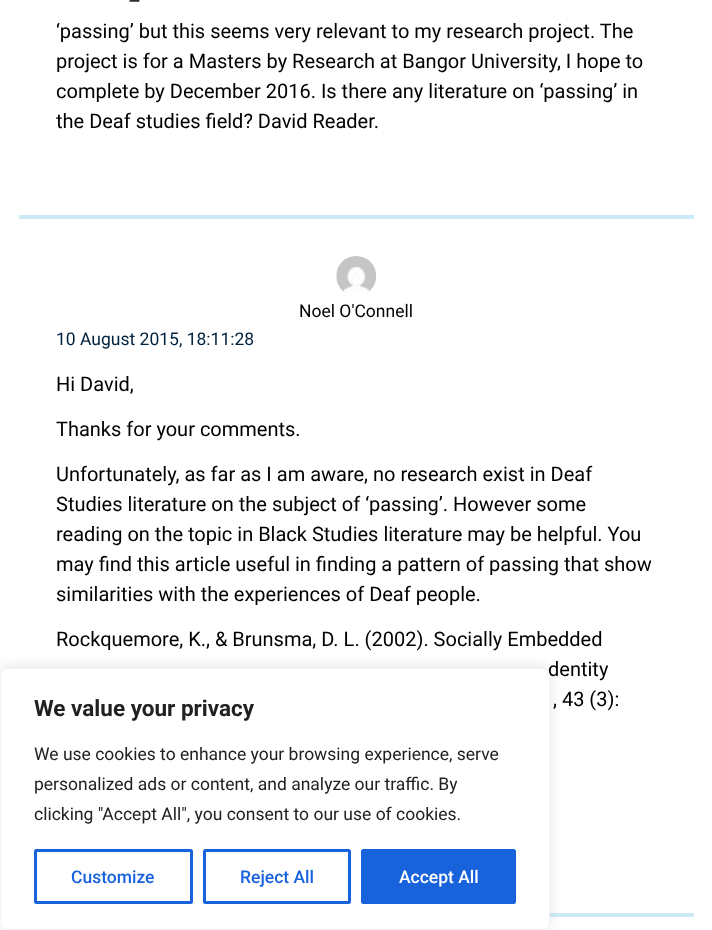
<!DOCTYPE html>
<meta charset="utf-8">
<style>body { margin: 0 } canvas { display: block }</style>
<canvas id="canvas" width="712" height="930"></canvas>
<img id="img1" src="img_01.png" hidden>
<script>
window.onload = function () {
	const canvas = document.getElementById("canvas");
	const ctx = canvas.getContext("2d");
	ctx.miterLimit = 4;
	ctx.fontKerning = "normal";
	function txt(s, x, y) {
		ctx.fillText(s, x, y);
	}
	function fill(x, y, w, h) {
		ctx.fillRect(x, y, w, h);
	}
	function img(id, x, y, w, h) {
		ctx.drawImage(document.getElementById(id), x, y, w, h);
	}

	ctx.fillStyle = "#FFFFFF";
	fill(0, 0, 712, 930);
	ctx.fillStyle = "#CCEBF8";
	fill(19, 215, 675, 4);
	img("img1", 336, 256, 40, 37);
	fill(550, 913, 144, 4);
	ctx.fillStyle = "rgba(172, 171, 171, 0.3)";
	ctx.filter = "blur(6px)";
	ctx.beginPath();
	ctx.roundRect(0, 666, 550, 263, 8);
	ctx.fill();
	ctx.filter = "none";
	ctx.font = "20px Roboto";
	ctx.fillStyle = "#000000";
	txt("–", 128, 8);
	txt("‘passing’ but this seems very relevant to my research project. The", 56, 38);
	txt("project is for a Masters by Research at Bangor University, I hope to", 56, 68);
	txt("complete by December 2016. Is there any literature on ‘passing’ in", 56, 98);
	txt("the Deaf studies field? David Reader.", 56, 128);
	ctx.font = "17.5px Roboto";
	txt("Noel O'Connell", 299, 317);
	ctx.fillStyle = "#00213E";
	txt("10 August 2015, 18:11:28", 56, 345);
	ctx.font = "20px Roboto";
	ctx.fillStyle = "#000000";
	txt("Hi David,", 56, 391);
	txt("Thanks for your comments.", 56, 436);
	txt("Unfortunately, as far as I am aware, no research exist in Deaf", 56, 481);
	txt("Studies literature on the subject of ‘passing’. However some", 56, 511);
	txt("reading on the topic in Black Studies literature may be helpful. You", 56, 541);
	txt("may find this article useful in finding a pattern of passing that show", 56, 571);
	txt("similarities with the experiences of Deaf people.", 56, 601);
	txt("Rockquemore, K., & Brunsma, D. L. (2002). Socially Embedded", 56, 646);
	txt("dentity", 548, 676);
	txt(", 43 (3):", 553, 706);
	ctx.fillStyle = "#FFFFFF";
	ctx.beginPath();
	ctx.roundRect(0.5, 668.5, 549, 261, 7.5);
	ctx.fill();
	ctx.strokeStyle = "#F4F4F4";
	ctx.stroke();
	ctx.font = "bold 22.5px Roboto";
	ctx.fillStyle = "#212121";
	txt("We value your privacy", 34, 716);
	ctx.font = "17.5px Roboto";
	txt("We use cookies to enhance your browsing experience, serve", 34, 760);
	txt("personalized ads or content, and analyze our traffic. By", 34, 790);
	txt("clicking \"Accept All\", you consent to our use of cookies.", 34, 820);
	ctx.beginPath();
	ctx.roundRect(35.5, 850.5, 156, 52, 1);
	ctx.strokeStyle = "#1863DC";
	ctx.lineWidth = 3;
	ctx.stroke();
	ctx.font = "500 17.5px Roboto";
	ctx.fillStyle = "#1863DC";
	txt("Customize", 71, 883);
	ctx.beginPath();
	ctx.roundRect(204.5, 850.5, 145, 52, 1);
	ctx.stroke();
	txt("Reject All", 240, 883);
	ctx.beginPath();
	ctx.roundRect(362.5, 850.5, 152, 52, 1);
	ctx.fill();
	ctx.stroke();
	ctx.fillStyle = "#FFFFFF";
	txt("Accept All", 399, 883);
};
</script>
